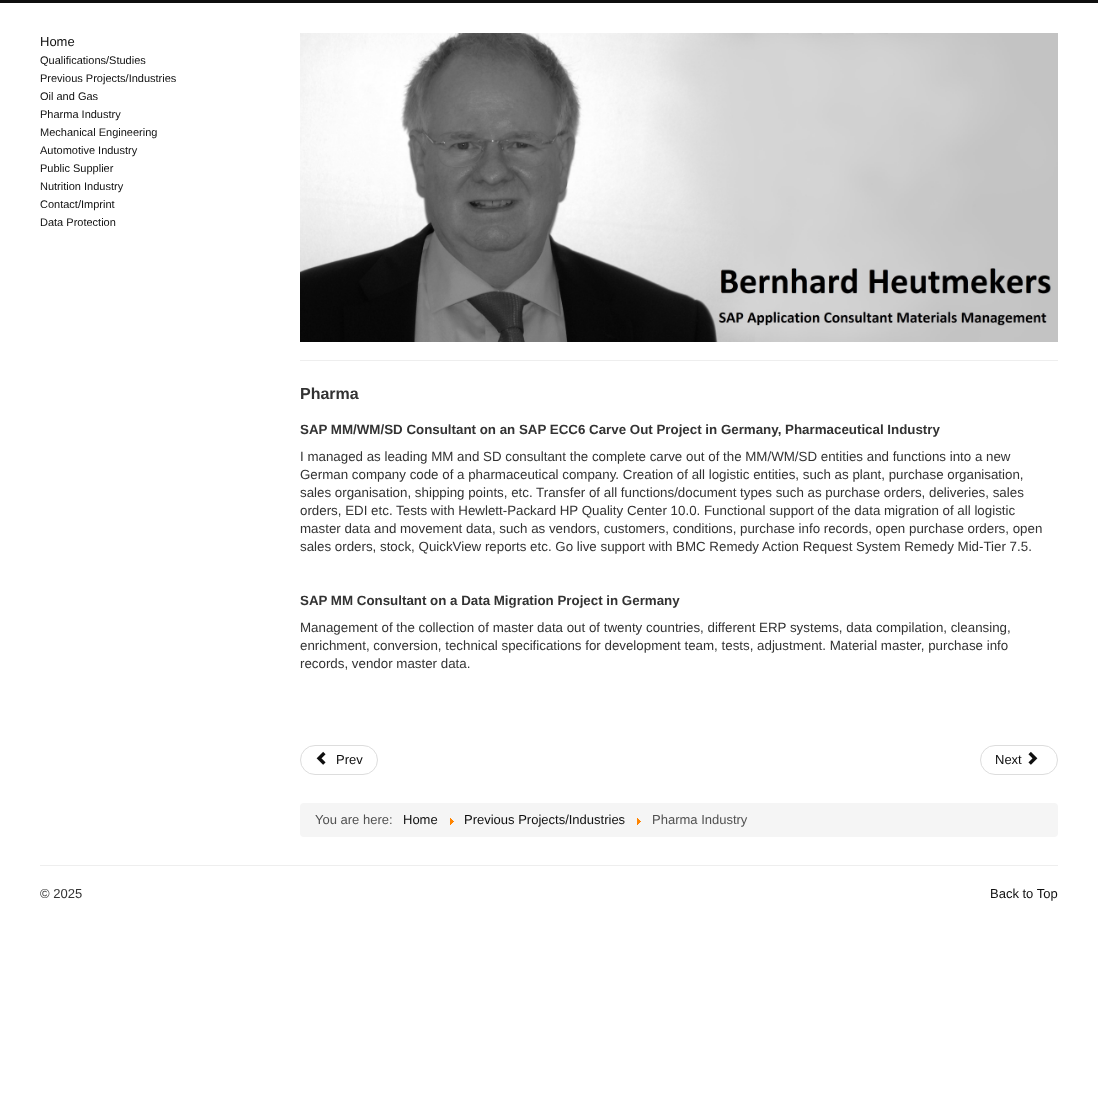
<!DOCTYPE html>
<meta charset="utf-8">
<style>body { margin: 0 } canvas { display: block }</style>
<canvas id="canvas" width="1098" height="1093"></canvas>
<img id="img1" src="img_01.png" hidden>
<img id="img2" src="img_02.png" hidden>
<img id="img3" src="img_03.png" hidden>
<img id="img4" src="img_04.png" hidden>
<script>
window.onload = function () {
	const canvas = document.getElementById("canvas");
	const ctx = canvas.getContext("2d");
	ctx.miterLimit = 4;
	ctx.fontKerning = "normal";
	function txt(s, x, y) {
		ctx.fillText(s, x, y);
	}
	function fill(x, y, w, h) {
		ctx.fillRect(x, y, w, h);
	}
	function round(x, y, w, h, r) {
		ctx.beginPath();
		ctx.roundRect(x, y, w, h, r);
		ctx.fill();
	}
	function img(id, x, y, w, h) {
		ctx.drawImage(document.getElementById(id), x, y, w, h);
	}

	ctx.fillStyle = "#FFFFFF";
	fill(0, 0, 1098, 1093);
	ctx.fillStyle = "#0F0F0F";
	fill(0, 0, 1098, 3);
	img("img1", 300, 33, 758, 309);
	ctx.fillStyle = "#EEEEEE";
	fill(300, 360, 758, 1);
	ctx.beginPath();
	ctx.roundRect(300.5, 745.5, 77, 29, 14.5);
	ctx.strokeStyle = "#DDDDDD";
	ctx.stroke();
	img("img2", 316, 751, 10, 14);
	ctx.beginPath();
	ctx.roundRect(980.5, 745.5, 77, 29, 14.5);
	ctx.stroke();
	img("img3", 1028, 751, 10, 14);
	ctx.fillStyle = "#F5F5F5";
	round(300, 803, 758, 34, 4);
	img("img4", 450, 818, 4, 7);
	img("img4", 637, 818, 4, 7);
	ctx.fillStyle = "#EEEEEE";
	fill(40, 865, 1018, 1);
	ctx.font = "13px Liberation Sans";
	ctx.fillStyle = "#0F0F0F";
	txt("Home", 40, 46);
	ctx.font = "11px Liberation Sans";
	txt("Qualifications/Studies", 40, 64);
	txt("Previous Projects/Industries", 40, 82);
	txt("Oil and Gas", 40, 100);
	txt("Pharma Industry", 40, 118);
	txt("Mechanical Engineering", 40, 136);
	txt("Automotive Industry", 40, 154);
	txt("Public Supplier", 40, 172);
	txt("Nutrition Industry", 40, 190);
	txt("Contact/Imprint", 40, 208);
	txt("Data Protection", 40, 226);
	ctx.font = "bold 16px Liberation Sans";
	ctx.fillStyle = "#333333";
	txt("Pharma", 300, 399);
	ctx.font = "bold 13.33px Liberation Sans";
	txt("SAP MM/WM/SD Consultant on an SAP ECC6 Carve Out Project in Germany, Pharmaceutical Industry", 300, 434);
	ctx.font = "13.33px Liberation Sans";
	txt("I managed as leading MM and SD consultant the complete carve out of the MM/WM/SD entities and functions into a new", 300, 461);
	txt("German company code of a pharmaceutical company. Creation of all logistic entities, such as plant, purchase organisation,", 300, 479);
	txt("sales organisation, shipping points, etc. Transfer of all functions/document types such as purchase orders, deliveries, sales", 300, 497);
	txt("orders, EDI etc. Tests with Hewlett-Packard HP Quality Center 10.0. Functional support of the data migration of all logistic", 300, 515);
	txt("master data and movement data, such as vendors, customers, conditions, purchase info records, open purchase orders, open", 300, 533);
	txt("sales orders, stock, QuickView reports etc. Go live support with BMC Remedy Action Request System Remedy Mid-Tier 7.5.", 300, 551);
	ctx.font = "bold 13.33px Liberation Sans";
	txt("SAP MM Consultant on a Data Migration Project in Germany", 300, 605);
	ctx.font = "13.33px Liberation Sans";
	txt("Management of the collection of master data out of twenty countries, different ERP systems, data compilation, cleansing,", 300, 632);
	txt("enrichment, conversion, technical specifications for development team, tests, adjustment. Material master, purchase info", 300, 650);
	txt("records, vendor master data.", 300, 668);
	ctx.font = "13px Liberation Sans";
	ctx.fillStyle = "#0F0F0F";
	txt("Prev", 336, 764);
	txt("Next", 995, 764);
	ctx.fillStyle = "#515151";
	txt("You are here:", 315, 824);
	ctx.fillStyle = "#0F0F0F";
	txt("Home", 403, 824);
	txt("Previous Projects/Industries", 464, 824);
	ctx.fillStyle = "#515151";
	txt("Pharma Industry", 652, 824);
	ctx.fillStyle = "#333333";
	txt("© 2025", 40, 898);
	ctx.fillStyle = "#0F0F0F";
	txt("Back to Top", 990, 898);
};
</script>
